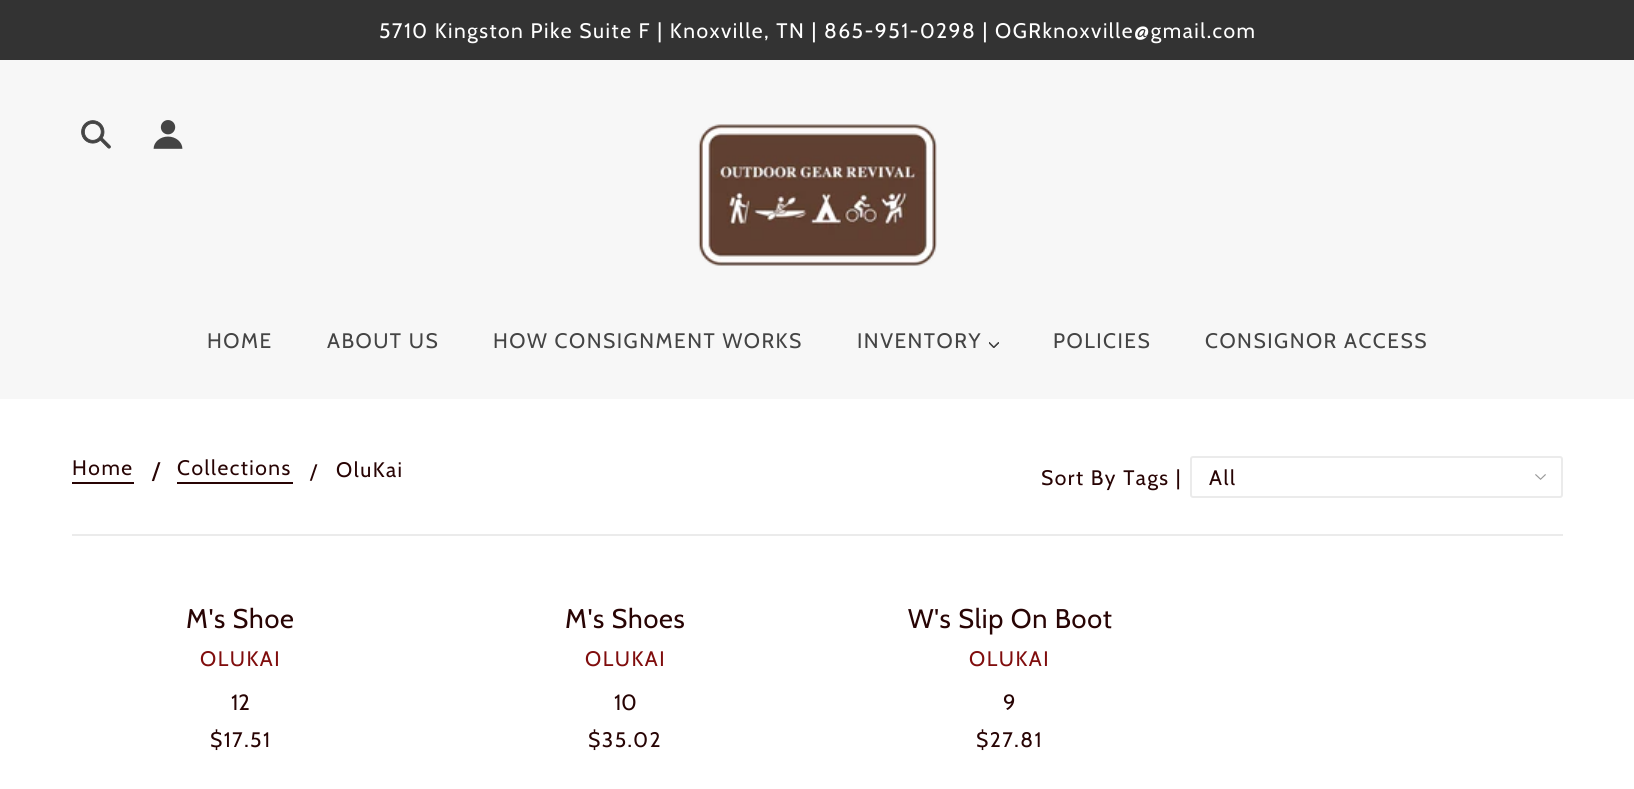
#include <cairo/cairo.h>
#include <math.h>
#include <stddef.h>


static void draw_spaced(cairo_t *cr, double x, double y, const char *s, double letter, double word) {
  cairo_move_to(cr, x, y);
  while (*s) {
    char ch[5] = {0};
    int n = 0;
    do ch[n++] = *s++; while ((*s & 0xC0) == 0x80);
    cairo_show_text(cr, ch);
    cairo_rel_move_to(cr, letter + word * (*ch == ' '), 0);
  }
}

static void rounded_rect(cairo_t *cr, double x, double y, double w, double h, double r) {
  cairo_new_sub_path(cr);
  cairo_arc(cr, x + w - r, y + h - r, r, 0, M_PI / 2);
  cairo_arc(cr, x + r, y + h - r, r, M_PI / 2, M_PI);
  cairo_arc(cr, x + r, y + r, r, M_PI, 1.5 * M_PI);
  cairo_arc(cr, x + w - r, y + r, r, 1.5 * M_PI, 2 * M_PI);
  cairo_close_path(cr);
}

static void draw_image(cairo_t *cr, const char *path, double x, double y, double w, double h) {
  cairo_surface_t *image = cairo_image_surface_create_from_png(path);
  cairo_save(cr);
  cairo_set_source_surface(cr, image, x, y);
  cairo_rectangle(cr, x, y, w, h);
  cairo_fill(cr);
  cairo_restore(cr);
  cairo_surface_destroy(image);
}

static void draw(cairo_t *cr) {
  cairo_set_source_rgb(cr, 1, 1, 1);
  cairo_paint(cr);
  cairo_set_source_rgb(cr, 51 / 255.0, 51 / 255.0, 51 / 255.0);
  cairo_rectangle(cr, 0, 0, 1634, 60);
  cairo_fill(cr);
  cairo_set_source_rgb(cr, 247 / 255.0, 247 / 255.0, 247 / 255.0);
  cairo_rectangle(cr, 0, 60, 1634, 339);
  cairo_fill(cr);
  draw_image(cr, "images/1.png", 81, 120, 30, 29);
  draw_image(cr, "images/2.png", 153, 120, 30, 29);
  draw_image(cr, "images/3.png", 698, 124, 239, 142);
  draw_image(cr, "images/4.png", 989, 342, 10, 6);
  cairo_set_source_rgb(cr, 40 / 255.0, 4 / 255.0, 4 / 255.0);
  cairo_rectangle(cr, 72, 482, 62, 2);
  cairo_fill(cr);
  cairo_rectangle(cr, 177, 482, 116, 2);
  cairo_fill(cr);
  draw_image(cr, "images/5.png", 1535, 474, 11, 6);
  rounded_rect(cr, 1191, 457, 371, 40, 2);
  cairo_set_source_rgb(cr, 235 / 255.0, 235 / 255.0, 235 / 255.0);
  cairo_stroke(cr);
  cairo_rectangle(cr, 72, 534, 1491, 2);
  cairo_fill(cr);
  cairo_select_font_face(cr, "Cabin", CAIRO_FONT_SLANT_NORMAL, CAIRO_FONT_WEIGHT_NORMAL);
  cairo_set_font_size(cr, 21);
  cairo_set_source_rgb(cr, 1, 1, 1);
  draw_spaced(cr, 379, 38, "5710 Kingston Pike Suite F | Knoxville, TN | 865-951-0298 | OGRknoxville@gmail.com", 1.5, 0);
  cairo_set_source_rgb(cr, 68 / 255.0, 68 / 255.0, 68 / 255.0);
  draw_spaced(cr, 207, 348, "HOME", 1.5, 0);
  draw_spaced(cr, 327, 348, "ABOUT US", 1.5, 0);
  draw_spaced(cr, 493, 348, "HOW CONSIGNMENT WORKS", 1.5, 0);
  draw_spaced(cr, 857, 348, "INVENTORY", 1.5, 0);
  draw_spaced(cr, 1053, 348, "POLICIES", 1.5, 0);
  draw_spaced(cr, 1205, 348, "CONSIGNOR ACCESS", 1.5, 0);
  cairo_set_source_rgb(cr, 40 / 255.0, 4 / 255.0, 4 / 255.0);
  draw_spaced(cr, 72, 475, "Home", 1.5, 0);
  cairo_set_font_size(cr, 24);
  cairo_move_to(cr, 152, 479);
  cairo_show_text(cr, "/");
  cairo_set_font_size(cr, 21);
  draw_spaced(cr, 177, 475, "Collections", 1.5, 0);
  draw_spaced(cr, 310, 479, "/", 1.5, 0);
  draw_spaced(cr, 336, 477, "OluKai", 1.5, 0);
  draw_spaced(cr, 1041, 485, "Sort By Tags |", 1.5, 0);
  draw_spaced(cr, 1209, 485, "All", 1.5, 0);
  cairo_set_font_size(cr, 27);
  draw_spaced(cr, 186, 628, "M's Shoe", 0.7, 0);
  cairo_set_font_size(cr, 21);
  cairo_set_source_rgb(cr, 128 / 255.0, 13 / 255.0, 13 / 255.0);
  draw_spaced(cr, 200, 666, "OLUKAI", 1.5, 0);
  cairo_set_font_size(cr, 22);
  cairo_set_source_rgb(cr, 40 / 255.0, 4 / 255.0, 4 / 255.0);
  cairo_move_to(cr, 231, 710);
  cairo_show_text(cr, "12");
  cairo_set_font_size(cr, 21);
  draw_spaced(cr, 210, 747, "$17.51", 1.5, 0);
  cairo_set_font_size(cr, 27);
  draw_spaced(cr, 565, 628, "M's Shoes", 0.7, 0);
  cairo_set_font_size(cr, 21);
  cairo_set_source_rgb(cr, 128 / 255.0, 13 / 255.0, 13 / 255.0);
  draw_spaced(cr, 585, 666, "OLUKAI", 1.5, 0);
  cairo_set_font_size(cr, 22);
  cairo_set_source_rgb(cr, 40 / 255.0, 4 / 255.0, 4 / 255.0);
  cairo_move_to(cr, 614, 710);
  cairo_show_text(cr, "10");
  cairo_set_font_size(cr, 21);
  draw_spaced(cr, 588, 747, "$35.02", 1.5, 0);
  cairo_set_font_size(cr, 27);
  draw_spaced(cr, 908, 628, "W's Slip On Boot", 0.7, 0);
  cairo_set_font_size(cr, 21);
  cairo_set_source_rgb(cr, 128 / 255.0, 13 / 255.0, 13 / 255.0);
  draw_spaced(cr, 969, 666, "OLUKAI", 1.5, 0);
  cairo_set_font_size(cr, 22);
  cairo_set_source_rgb(cr, 40 / 255.0, 4 / 255.0, 4 / 255.0);
  cairo_move_to(cr, 1003, 710);
  cairo_show_text(cr, "9");
  cairo_set_font_size(cr, 21);
  draw_spaced(cr, 976, 747, "$27.81", 1.5, 0);
}

int main(void) {
  cairo_surface_t *surface = cairo_image_surface_create(CAIRO_FORMAT_RGB24, 1634, 789);
  cairo_t *cr = cairo_create(surface);
  cairo_font_options_t *options = cairo_font_options_create();
  cairo_font_options_set_hint_metrics(options, CAIRO_HINT_METRICS_OFF);
  cairo_font_options_set_hint_style(options, CAIRO_HINT_STYLE_NONE);
  cairo_set_font_options(cr, options);
  cairo_set_miter_limit(cr, 4);
  draw(cr);
  cairo_surface_write_to_png(surface, "out.png");
  cairo_font_options_destroy(options);
  cairo_destroy(cr);
  cairo_surface_destroy(surface);
  return 0;
}
